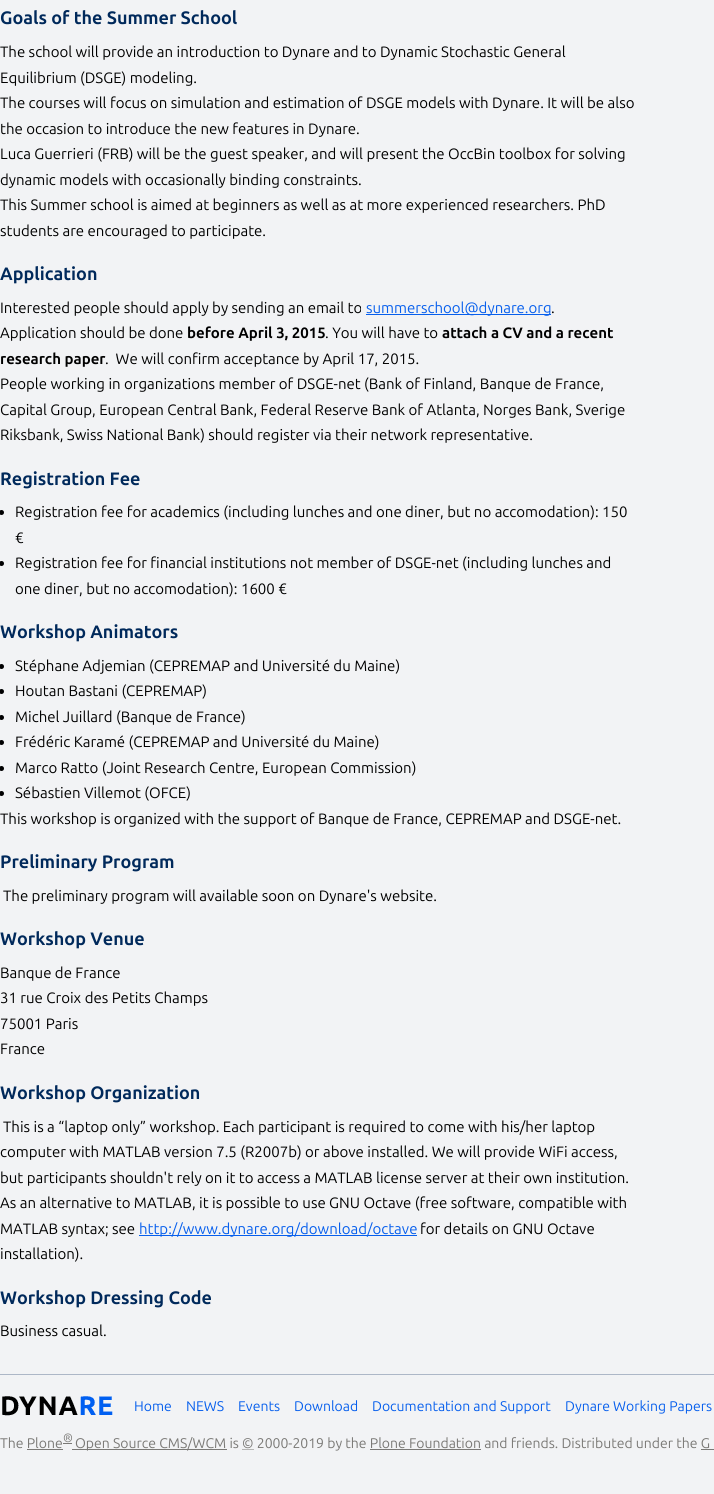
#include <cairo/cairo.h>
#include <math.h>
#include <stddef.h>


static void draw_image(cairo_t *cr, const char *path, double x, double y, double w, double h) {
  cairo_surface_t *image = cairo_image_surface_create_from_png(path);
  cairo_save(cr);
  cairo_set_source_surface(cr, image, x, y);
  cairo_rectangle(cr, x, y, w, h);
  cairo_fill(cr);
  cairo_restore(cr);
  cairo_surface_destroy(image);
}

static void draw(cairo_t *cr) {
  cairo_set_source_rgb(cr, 242 / 255.0, 243 / 255.0, 245 / 255.0);
  cairo_paint(cr);
  cairo_set_source_rgb(cr, 7 / 255.0, 95 / 255.0, 237 / 255.0);
  cairo_rectangle(cr, 366, 314, 185, 1);
  cairo_fill(cr);
  cairo_set_source_rgb(cr, 0, 0, 0);
  cairo_arc(cr, 1.5, 512.5, 2.5, 0, 2 * M_PI);
  cairo_fill(cr);
  cairo_arc(cr, 1.5, 563.5, 2.5, 0, 2 * M_PI);
  cairo_fill(cr);
  cairo_arc(cr, 1.5, 666.5, 2.5, 0, 2 * M_PI);
  cairo_fill(cr);
  cairo_arc(cr, 1.5, 691.5, 2.5, 0, 2 * M_PI);
  cairo_fill(cr);
  cairo_arc(cr, 1.5, 717.5, 2.5, 0, 2 * M_PI);
  cairo_fill(cr);
  cairo_arc(cr, 1.5, 742.5, 2.5, 0, 2 * M_PI);
  cairo_fill(cr);
  cairo_arc(cr, 1.5, 768.5, 2.5, 0, 2 * M_PI);
  cairo_fill(cr);
  cairo_arc(cr, 1.5, 793.5, 2.5, 0, 2 * M_PI);
  cairo_fill(cr);
  cairo_set_source_rgb(cr, 7 / 255.0, 95 / 255.0, 237 / 255.0);
  cairo_rectangle(cr, 139, 1235, 278, 1);
  cairo_fill(cr);
  cairo_set_source_rgb(cr, 173 / 255.0, 183 / 255.0, 199 / 255.0);
  cairo_rectangle(cr, 0, 1374, 714, 1);
  cairo_fill(cr);
  draw_image(cr, "images/1.png", 2, 1396, 111, 20);
  cairo_set_source_rgb(cr, 122 / 255.0, 121 / 255.0, 118 / 255.0);
  cairo_rectangle(cr, 27, 1449, 36, 1);
  cairo_fill(cr);
  cairo_rectangle(cr, 63, 1443, 9, 1);
  cairo_fill(cr);
  cairo_rectangle(cr, 72, 1449, 155, 1);
  cairo_fill(cr);
  cairo_new_path(cr);
  cairo_move_to(cr, 242.5, 1449.5);
  cairo_line_to(cr, 254, 1449.5);
  cairo_set_line_width(cr, 1);
  cairo_set_dash(cr, (double[]){1, 1}, 2, 0);
  cairo_stroke(cr);
  cairo_rectangle(cr, 370, 1449, 111, 1);
  cairo_fill(cr);
  cairo_rectangle(cr, 701, 1449, 13, 1);
  cairo_fill(cr);
  cairo_select_font_face(cr, "Ubuntu", CAIRO_FONT_SLANT_NORMAL, CAIRO_FONT_WEIGHT_BOLD);
  cairo_set_font_size(cr, 18);
  cairo_set_source_rgb(cr, 0, 41 / 255.0, 91 / 255.0);
  cairo_move_to(cr, 0, 24);
  cairo_show_text(cr, "Goals of the Summer School");
  cairo_select_font_face(cr, "Ubuntu", CAIRO_FONT_SLANT_NORMAL, CAIRO_FONT_WEIGHT_NORMAL);
  cairo_set_font_size(cr, 15);
  cairo_set_source_rgb(cr, 0, 0, 0);
  cairo_move_to(cr, 0, 57);
  cairo_show_text(cr, "The school will provide an introduction to Dynare and to Dynamic Stochastic General");
  cairo_move_to(cr, 0, 83);
  cairo_show_text(cr, "Equilibrium (DSGE) modeling.");
  cairo_move_to(cr, 0, 108);
  cairo_show_text(cr, "The courses will focus on simulation and estimation of DSGE models with Dynare. It will be also");
  cairo_move_to(cr, 0, 134);
  cairo_show_text(cr, "the occasion to introduce the new features in Dynare.");
  cairo_move_to(cr, 0, 159);
  cairo_show_text(cr, "Luca Guerrieri (FRB) will be the guest speaker, and will present the OccBin toolbox for solving");
  cairo_move_to(cr, 0, 185);
  cairo_show_text(cr, "dynamic models with occasionally binding constraints.");
  cairo_move_to(cr, 0, 210);
  cairo_show_text(cr, "This Summer school is aimed at beginners as well as at more experienced researchers. PhD");
  cairo_move_to(cr, 0, 236);
  cairo_show_text(cr, "students are encouraged to participate.");
  cairo_select_font_face(cr, "Ubuntu", CAIRO_FONT_SLANT_NORMAL, CAIRO_FONT_WEIGHT_BOLD);
  cairo_set_font_size(cr, 18);
  cairo_set_source_rgb(cr, 0, 41 / 255.0, 91 / 255.0);
  cairo_move_to(cr, 0, 280);
  cairo_show_text(cr, "Application");
  cairo_select_font_face(cr, "Ubuntu", CAIRO_FONT_SLANT_NORMAL, CAIRO_FONT_WEIGHT_NORMAL);
  cairo_set_font_size(cr, 15);
  cairo_set_source_rgb(cr, 0, 0, 0);
  cairo_move_to(cr, 0, 313);
  cairo_show_text(cr, "Interested people should apply by sending an email to");
  cairo_set_source_rgb(cr, 7 / 255.0, 95 / 255.0, 237 / 255.0);
  cairo_move_to(cr, 366, 313);
  cairo_show_text(cr, "summerschool@dynare.org");
  cairo_set_source_rgb(cr, 0, 0, 0);
  cairo_move_to(cr, 551, 313);
  cairo_show_text(cr, ".");
  cairo_move_to(cr, 0, 338);
  cairo_show_text(cr, "Application should be done");
  cairo_select_font_face(cr, "Ubuntu", CAIRO_FONT_SLANT_NORMAL, CAIRO_FONT_WEIGHT_BOLD);
  cairo_move_to(cr, 187, 338);
  cairo_show_text(cr, "before April 3, 2015");
  cairo_select_font_face(cr, "Ubuntu", CAIRO_FONT_SLANT_NORMAL, CAIRO_FONT_WEIGHT_NORMAL);
  cairo_move_to(cr, 325, 338);
  cairo_show_text(cr, ". You will have to");
  cairo_select_font_face(cr, "Ubuntu", CAIRO_FONT_SLANT_NORMAL, CAIRO_FONT_WEIGHT_BOLD);
  cairo_move_to(cr, 442, 338);
  cairo_show_text(cr, "attach a CV and a recent");
  cairo_move_to(cr, 0, 364);
  cairo_show_text(cr, "research paper");
  cairo_select_font_face(cr, "Ubuntu", CAIRO_FONT_SLANT_NORMAL, CAIRO_FONT_WEIGHT_NORMAL);
  cairo_move_to(cr, 105, 364);
  cairo_show_text(cr, ".  We will confirm acceptance by April 17, 2015.");
  cairo_move_to(cr, 0, 389);
  cairo_show_text(cr, "People working in organizations member of DSGE-net (Bank of Finland, Banque de France,");
  cairo_move_to(cr, 0, 415);
  cairo_show_text(cr, "Capital Group, European Central Bank, Federal Reserve Bank of Atlanta, Norges Bank, Sverige");
  cairo_move_to(cr, 0, 440);
  cairo_show_text(cr, "Riksbank, Swiss National Bank) should register via their network representative.");
  cairo_select_font_face(cr, "Ubuntu", CAIRO_FONT_SLANT_NORMAL, CAIRO_FONT_WEIGHT_BOLD);
  cairo_set_font_size(cr, 18);
  cairo_set_source_rgb(cr, 0, 41 / 255.0, 91 / 255.0);
  cairo_move_to(cr, 0, 485);
  cairo_show_text(cr, "Registration Fee");
  cairo_select_font_face(cr, "Ubuntu", CAIRO_FONT_SLANT_NORMAL, CAIRO_FONT_WEIGHT_NORMAL);
  cairo_set_font_size(cr, 15);
  cairo_set_source_rgb(cr, 0, 0, 0);
  cairo_move_to(cr, 15, 517);
  cairo_show_text(cr, "Registration fee for academics (including lunches and one diner, but no accomodation): 150");
  cairo_move_to(cr, 15, 543);
  cairo_show_text(cr, "€");
  cairo_move_to(cr, 15, 568);
  cairo_show_text(cr, "Registration fee for financial institutions not member of DSGE-net (including lunches and");
  cairo_move_to(cr, 15, 594);
  cairo_show_text(cr, "one diner, but no accomodation): 1600 €");
  cairo_select_font_face(cr, "Ubuntu", CAIRO_FONT_SLANT_NORMAL, CAIRO_FONT_WEIGHT_BOLD);
  cairo_set_font_size(cr, 18);
  cairo_set_source_rgb(cr, 0, 41 / 255.0, 91 / 255.0);
  cairo_move_to(cr, 0, 638);
  cairo_show_text(cr, "Workshop Animators");
  cairo_select_font_face(cr, "Ubuntu", CAIRO_FONT_SLANT_NORMAL, CAIRO_FONT_WEIGHT_NORMAL);
  cairo_set_font_size(cr, 15);
  cairo_set_source_rgb(cr, 0, 0, 0);
  cairo_move_to(cr, 15, 671);
  cairo_show_text(cr, "Stéphane Adjemian (CEPREMAP and Université du Maine)");
  cairo_move_to(cr, 15, 696);
  cairo_show_text(cr, "Houtan Bastani (CEPREMAP)");
  cairo_move_to(cr, 15, 722);
  cairo_show_text(cr, "Michel Juillard (Banque de France)");
  cairo_move_to(cr, 15, 747);
  cairo_show_text(cr, "Frédéric Karamé (CEPREMAP and Université du Maine)");
  cairo_move_to(cr, 15, 773);
  cairo_show_text(cr, "Marco Ratto (Joint Research Centre, European Commission)");
  cairo_move_to(cr, 15, 798);
  cairo_show_text(cr, "Sébastien Villemot (OFCE)");
  cairo_move_to(cr, 0, 824);
  cairo_show_text(cr, "This workshop is organized with the support of Banque de France, CEPREMAP and DSGE-net.");
  cairo_select_font_face(cr, "Ubuntu", CAIRO_FONT_SLANT_NORMAL, CAIRO_FONT_WEIGHT_BOLD);
  cairo_set_font_size(cr, 18);
  cairo_set_source_rgb(cr, 0, 41 / 255.0, 91 / 255.0);
  cairo_move_to(cr, 0, 868);
  cairo_show_text(cr, "Preliminary Program");
  cairo_select_font_face(cr, "Ubuntu", CAIRO_FONT_SLANT_NORMAL, CAIRO_FONT_WEIGHT_NORMAL);
  cairo_set_font_size(cr, 15);
  cairo_set_source_rgb(cr, 0, 0, 0);
  cairo_move_to(cr, 3, 901);
  cairo_show_text(cr, "The preliminary program will available soon on Dynare's website.");
  cairo_select_font_face(cr, "Ubuntu", CAIRO_FONT_SLANT_NORMAL, CAIRO_FONT_WEIGHT_BOLD);
  cairo_set_font_size(cr, 18);
  cairo_set_source_rgb(cr, 0, 41 / 255.0, 91 / 255.0);
  cairo_move_to(cr, 0, 945);
  cairo_show_text(cr, "Workshop Venue");
  cairo_select_font_face(cr, "Ubuntu", CAIRO_FONT_SLANT_NORMAL, CAIRO_FONT_WEIGHT_NORMAL);
  cairo_set_font_size(cr, 15);
  cairo_set_source_rgb(cr, 0, 0, 0);
  cairo_move_to(cr, 0, 978);
  cairo_show_text(cr, "Banque de France");
  cairo_move_to(cr, 0, 1003);
  cairo_show_text(cr, "31 rue Croix des Petits Champs");
  cairo_move_to(cr, 0, 1029);
  cairo_show_text(cr, "75001 Paris");
  cairo_move_to(cr, 0, 1054);
  cairo_show_text(cr, "France");
  cairo_select_font_face(cr, "Ubuntu", CAIRO_FONT_SLANT_NORMAL, CAIRO_FONT_WEIGHT_BOLD);
  cairo_set_font_size(cr, 18);
  cairo_set_source_rgb(cr, 0, 41 / 255.0, 91 / 255.0);
  cairo_move_to(cr, 0, 1099);
  cairo_show_text(cr, "Workshop Organization");
  cairo_select_font_face(cr, "Ubuntu", CAIRO_FONT_SLANT_NORMAL, CAIRO_FONT_WEIGHT_NORMAL);
  cairo_set_font_size(cr, 15);
  cairo_set_source_rgb(cr, 0, 0, 0);
  cairo_move_to(cr, 3, 1132);
  cairo_show_text(cr, "This is a “laptop only” workshop. Each participant is required to come with his/her laptop");
  cairo_move_to(cr, 0, 1157);
  cairo_show_text(cr, "computer with MATLAB version 7.5 (R2007b) or above installed. We will provide WiFi access,");
  cairo_move_to(cr, 0, 1183);
  cairo_show_text(cr, "but participants shouldn't rely on it to access a MATLAB license server at their own institution.");
  cairo_move_to(cr, 0, 1208);
  cairo_show_text(cr, "As an alternative to MATLAB, it is possible to use GNU Octave (free software, compatible with");
  cairo_move_to(cr, 0, 1234);
  cairo_show_text(cr, "MATLAB syntax; see");
  cairo_set_source_rgb(cr, 7 / 255.0, 95 / 255.0, 237 / 255.0);
  cairo_move_to(cr, 139, 1234);
  cairo_show_text(cr, "http://www.dynare.org/download/octave");
  cairo_set_source_rgb(cr, 0, 0, 0);
  cairo_move_to(cr, 420, 1234);
  cairo_show_text(cr, "for details on GNU Octave");
  cairo_move_to(cr, 0, 1259);
  cairo_show_text(cr, "installation).");
  cairo_select_font_face(cr, "Ubuntu", CAIRO_FONT_SLANT_NORMAL, CAIRO_FONT_WEIGHT_BOLD);
  cairo_set_font_size(cr, 18);
  cairo_set_source_rgb(cr, 0, 41 / 255.0, 91 / 255.0);
  cairo_move_to(cr, 0, 1304);
  cairo_show_text(cr, "Workshop Dressing Code");
  cairo_select_font_face(cr, "Ubuntu", CAIRO_FONT_SLANT_NORMAL, CAIRO_FONT_WEIGHT_NORMAL);
  cairo_set_font_size(cr, 15);
  cairo_set_source_rgb(cr, 0, 0, 0);
  cairo_move_to(cr, 0, 1336);
  cairo_show_text(cr, "Business casual.");
  cairo_set_font_size(cr, 14);
  cairo_set_source_rgb(cr, 7 / 255.0, 95 / 255.0, 237 / 255.0);
  cairo_move_to(cr, 134, 1411);
  cairo_show_text(cr, "Home");
  cairo_move_to(cr, 186, 1411);
  cairo_show_text(cr, "NEWS");
  cairo_move_to(cr, 238, 1411);
  cairo_show_text(cr, "Events");
  cairo_move_to(cr, 294, 1411);
  cairo_show_text(cr, "Download");
  cairo_move_to(cr, 372, 1411);
  cairo_show_text(cr, "Documentation and Support");
  cairo_move_to(cr, 565, 1411);
  cairo_show_text(cr, "Dynare Working Papers");
  cairo_set_source_rgb(cr, 122 / 255.0, 121 / 255.0, 118 / 255.0);
  cairo_move_to(cr, 0, 1448);
  cairo_show_text(cr, "The Plone");
  cairo_set_font_size(cr, 12);
  cairo_move_to(cr, 63, 1442);
  cairo_show_text(cr, "®");
  cairo_set_font_size(cr, 14);
  cairo_move_to(cr, 75, 1448);
  cairo_show_text(cr, "Open Source CMS/WCM is © 2000-2019 by the Plone Foundation and friends. Distributed under the G");
}

int main(void) {
  cairo_surface_t *surface = cairo_image_surface_create(CAIRO_FORMAT_RGB24, 714, 1494);
  cairo_t *cr = cairo_create(surface);
  cairo_font_options_t *options = cairo_font_options_create();
  cairo_font_options_set_hint_metrics(options, CAIRO_HINT_METRICS_OFF);
  cairo_font_options_set_hint_style(options, CAIRO_HINT_STYLE_NONE);
  cairo_set_font_options(cr, options);
  cairo_set_miter_limit(cr, 4);
  draw(cr);
  cairo_surface_write_to_png(surface, "out.png");
  cairo_font_options_destroy(options);
  cairo_destroy(cr);
  cairo_surface_destroy(surface);
  return 0;
}
